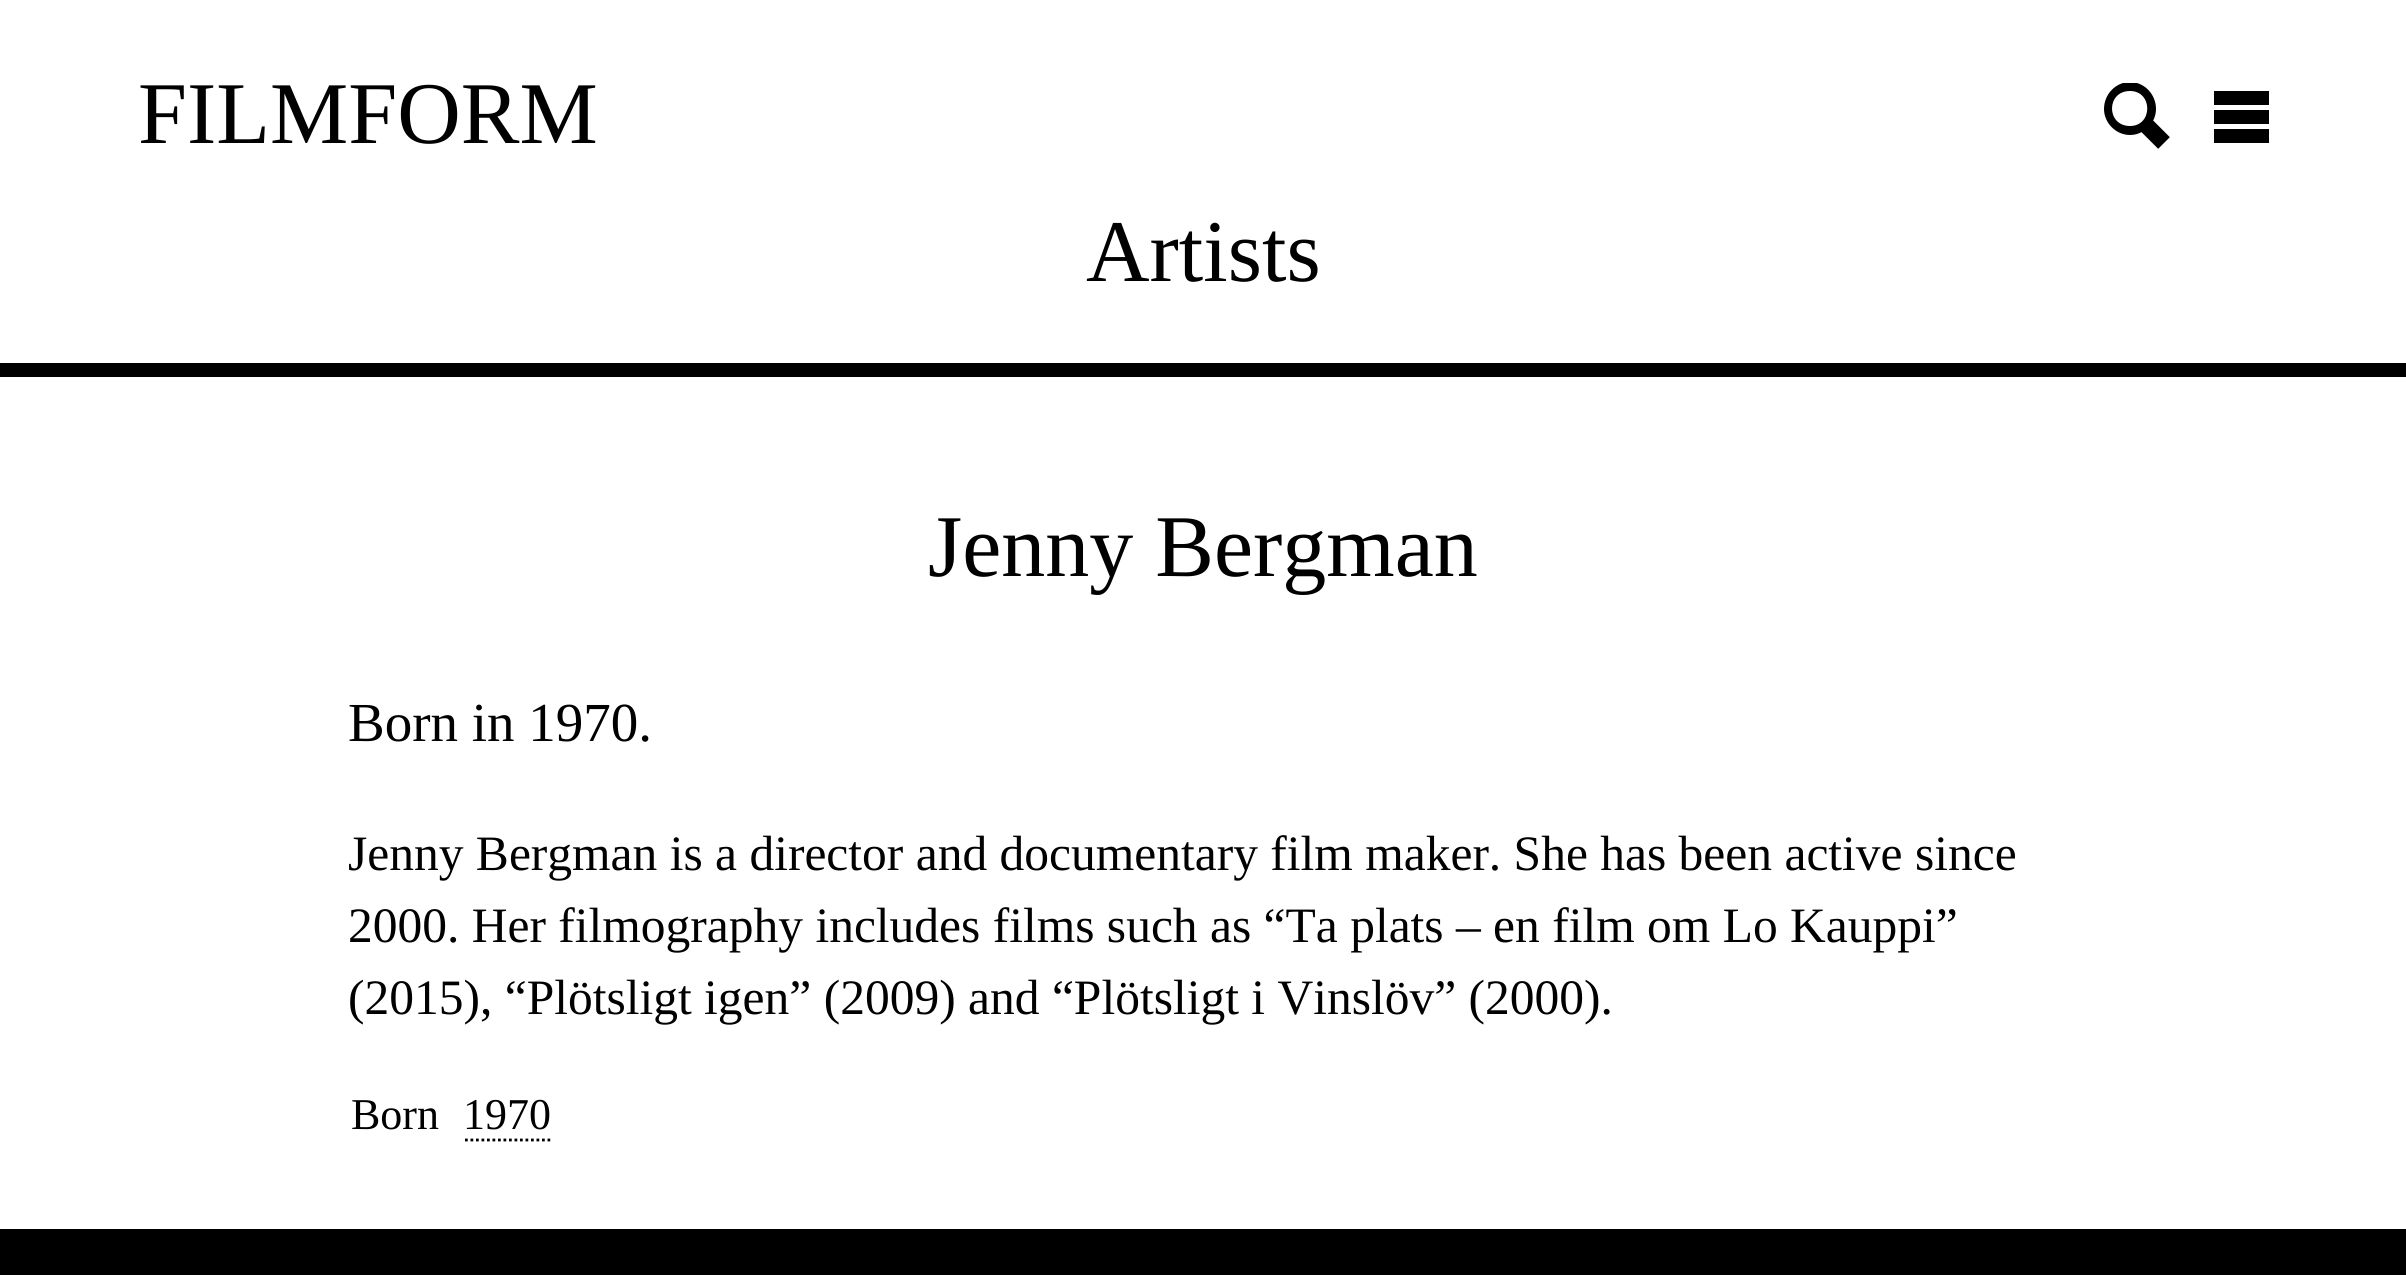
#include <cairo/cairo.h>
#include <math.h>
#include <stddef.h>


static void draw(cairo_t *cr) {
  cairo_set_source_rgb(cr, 1, 1, 1);
  cairo_paint(cr);
  cairo_save(cr);
  cairo_rectangle(cr, 2104, 83, 66, 66);
  cairo_clip(cr);
  cairo_set_source_rgb(cr, 0, 0, 0);
  cairo_new_path(cr);
  cairo_move_to(cr, 2130, 91);
  cairo_curve_to(cr, 2153, 91, 2153, 126, 2130, 126);
  cairo_curve_to(cr, 2106, 126, 2106, 91, 2130, 91);
  cairo_move_to(cr, 2130, 82);
  cairo_curve_to(cr, 2116, 82, 2104, 94, 2104, 109);
  cairo_curve_to(cr, 2104, 123, 2116, 135, 2130, 135);
  cairo_curve_to(cr, 2144, 135, 2156, 123, 2156, 109);
  cairo_curve_to(cr, 2156, 94, 2144, 82, 2130, 82);
  cairo_close_path(cr);
  cairo_fill(cr);
  cairo_restore(cr);
  cairo_new_path(cr);
  cairo_move_to(cr, 2143.5, 122.5);
  cairo_line_to(cr, 2164, 143);
  cairo_set_source_rgb(cr, 0, 0, 0);
  cairo_set_line_width(cr, 16.5);
  cairo_stroke(cr);
  cairo_rectangle(cr, 2214, 91, 55, 14);
  cairo_fill(cr);
  cairo_rectangle(cr, 2214, 110, 55, 14);
  cairo_fill(cr);
  cairo_rectangle(cr, 2214, 129, 55, 14);
  cairo_fill(cr);
  cairo_rectangle(cr, 0, 363, 2406, 14);
  cairo_fill(cr);
  cairo_new_path(cr);
  cairo_move_to(cr, 465, 1140);
  cairo_line_to(cr, 553, 1140);
  cairo_set_line_width(cr, 2.8);
  cairo_set_dash(cr, (double[]){2.75, 2.75}, 2, 0);
  cairo_stroke(cr);
  cairo_rectangle(cr, 0, 1229, 2406, 46);
  cairo_fill(cr);
  cairo_select_font_face(cr, "Liberation Serif", CAIRO_FONT_SLANT_NORMAL, CAIRO_FONT_WEIGHT_NORMAL);
  cairo_set_font_size(cr, 88);
  cairo_move_to(cr, 138, 143);
  cairo_show_text(cr, "FILMFORM");
  cairo_move_to(cr, 1086, 281);
  cairo_show_text(cr, "Artists");
  cairo_move_to(cr, 928, 576);
  cairo_show_text(cr, "Jenny Bergman");
  cairo_set_font_size(cr, 55);
  cairo_move_to(cr, 348, 741);
  cairo_show_text(cr, "Born in 1970.");
  cairo_set_font_size(cr, 49.5);
  cairo_move_to(cr, 348, 870);
  cairo_show_text(cr, "Jenny Bergman is a director and documentary film maker. She has been active since");
  cairo_move_to(cr, 348, 942);
  cairo_show_text(cr, "2000. Her filmography includes films such as “Ta plats – en film om Lo Kauppi”");
  cairo_move_to(cr, 348, 1014);
  cairo_show_text(cr, "(2015), “Plötsligt igen” (2009) and “Plötsligt i Vinslöv” (2000).");
  cairo_set_font_size(cr, 44);
  cairo_move_to(cr, 351, 1129);
  cairo_show_text(cr, "Born");
  cairo_move_to(cr, 463, 1129);
  cairo_show_text(cr, "1970");
}

int main(void) {
  cairo_surface_t *surface = cairo_image_surface_create(CAIRO_FORMAT_RGB24, 2406, 1275);
  cairo_t *cr = cairo_create(surface);
  cairo_font_options_t *options = cairo_font_options_create();
  cairo_font_options_set_hint_metrics(options, CAIRO_HINT_METRICS_OFF);
  cairo_font_options_set_hint_style(options, CAIRO_HINT_STYLE_NONE);
  cairo_set_font_options(cr, options);
  cairo_set_miter_limit(cr, 4);
  draw(cr);
  cairo_surface_write_to_png(surface, "out.png");
  cairo_font_options_destroy(options);
  cairo_destroy(cr);
  cairo_surface_destroy(surface);
  return 0;
}
